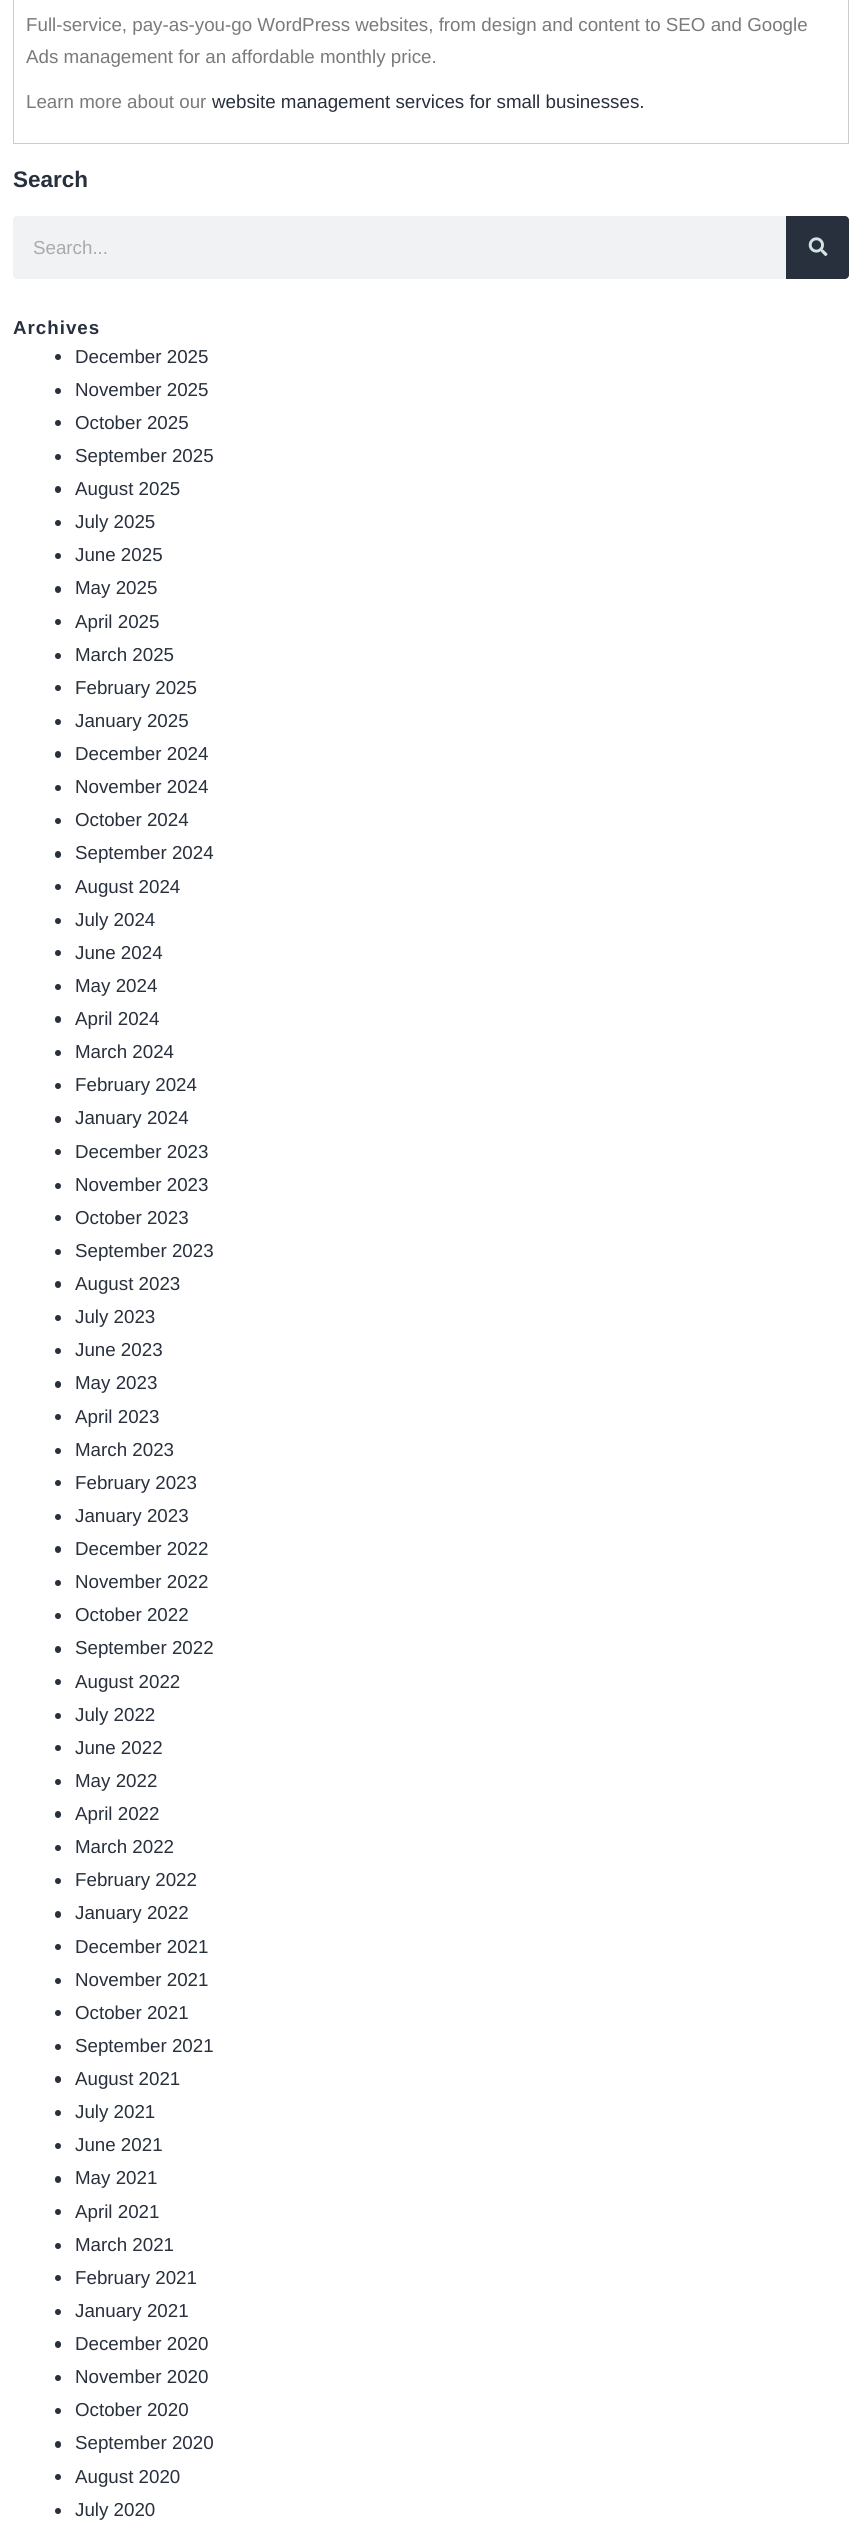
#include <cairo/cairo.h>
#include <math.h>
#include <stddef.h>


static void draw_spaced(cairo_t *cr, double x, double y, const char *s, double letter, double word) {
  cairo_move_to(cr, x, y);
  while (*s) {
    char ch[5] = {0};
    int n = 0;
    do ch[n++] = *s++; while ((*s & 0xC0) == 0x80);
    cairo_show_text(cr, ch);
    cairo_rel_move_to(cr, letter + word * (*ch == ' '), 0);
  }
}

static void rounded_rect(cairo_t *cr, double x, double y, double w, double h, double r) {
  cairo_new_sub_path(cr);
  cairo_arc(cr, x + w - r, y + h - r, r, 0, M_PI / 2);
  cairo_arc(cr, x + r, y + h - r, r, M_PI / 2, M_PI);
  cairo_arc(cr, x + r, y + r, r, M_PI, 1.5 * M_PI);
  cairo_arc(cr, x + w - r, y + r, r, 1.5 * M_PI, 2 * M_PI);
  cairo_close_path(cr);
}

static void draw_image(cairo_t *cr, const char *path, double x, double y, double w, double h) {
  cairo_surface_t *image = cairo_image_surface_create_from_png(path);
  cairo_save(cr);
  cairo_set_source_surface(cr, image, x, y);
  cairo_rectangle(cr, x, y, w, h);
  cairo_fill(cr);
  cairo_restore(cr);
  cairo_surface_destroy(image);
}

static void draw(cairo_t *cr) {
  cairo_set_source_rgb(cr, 1, 1, 1);
  cairo_paint(cr);
  cairo_rectangle(cr, 13.5, -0.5, 835, 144);
  cairo_set_source_rgb(cr, 204 / 255.0, 204 / 255.0, 204 / 255.0);
  cairo_set_line_width(cr, 1);
  cairo_stroke(cr);
  cairo_set_source_rgb(cr, 241 / 255.0, 242 / 255.0, 243 / 255.0);
  rounded_rect(cr, 13, 216, 836, 63, 4);
  cairo_fill(cr);
  cairo_set_source_rgb(cr, 40 / 255.0, 48 / 255.0, 61 / 255.0);
  cairo_new_path(cr);
  cairo_move_to(cr, 786, 216);
  cairo_line_to(cr, 845, 216);
  cairo_curve_to(cr, 847, 216, 849, 218, 849, 220);
  cairo_line_to(cr, 849, 275);
  cairo_curve_to(cr, 849, 277, 847, 279, 845, 279);
  cairo_line_to(cr, 786, 279);
  cairo_close_path(cr);
  cairo_fill(cr);
  draw_image(cr, "images/1.png", 808, 237, 20, 19);
  cairo_arc(cr, 58, 357, 3, 0, 2 * M_PI);
  cairo_fill(cr);
  cairo_arc(cr, 58, 391, 3, 0, 2 * M_PI);
  cairo_fill(cr);
  cairo_arc(cr, 58, 423, 3, 0, 2 * M_PI);
  cairo_fill(cr);
  cairo_arc(cr, 58, 457, 3, 0, 2 * M_PI);
  cairo_fill(cr);
  rounded_rect(cr, 55, 486, 6, 7, 3);
  cairo_fill(cr);
  cairo_arc(cr, 58, 523, 3, 0, 2 * M_PI);
  cairo_fill(cr);
  cairo_arc(cr, 58, 556, 3, 0, 2 * M_PI);
  cairo_fill(cr);
  rounded_rect(cr, 55, 586, 6, 7, 3);
  cairo_fill(cr);
  cairo_arc(cr, 58, 622, 3, 0, 2 * M_PI);
  cairo_fill(cr);
  cairo_arc(cr, 58, 656, 3, 0, 2 * M_PI);
  cairo_fill(cr);
  cairo_arc(cr, 58, 688, 3, 0, 2 * M_PI);
  cairo_fill(cr);
  cairo_arc(cr, 58, 722, 3, 0, 2 * M_PI);
  cairo_fill(cr);
  rounded_rect(cr, 55, 751, 6, 7, 3);
  cairo_fill(cr);
  cairo_arc(cr, 58, 788, 3, 0, 2 * M_PI);
  cairo_fill(cr);
  cairo_arc(cr, 58, 821, 3, 0, 2 * M_PI);
  cairo_fill(cr);
  rounded_rect(cr, 55, 851, 6, 7, 3);
  cairo_fill(cr);
  cairo_arc(cr, 58, 887, 3, 0, 2 * M_PI);
  cairo_fill(cr);
  cairo_arc(cr, 58, 921, 3, 0, 2 * M_PI);
  cairo_fill(cr);
  cairo_arc(cr, 58, 953, 3, 0, 2 * M_PI);
  cairo_fill(cr);
  cairo_arc(cr, 58, 987, 3, 0, 2 * M_PI);
  cairo_fill(cr);
  rounded_rect(cr, 55, 1016, 6, 7, 3);
  cairo_fill(cr);
  cairo_arc(cr, 58, 1053, 3, 0, 2 * M_PI);
  cairo_fill(cr);
  cairo_arc(cr, 58, 1086, 3, 0, 2 * M_PI);
  cairo_fill(cr);
  rounded_rect(cr, 55, 1116, 6, 7, 3);
  cairo_fill(cr);
  cairo_arc(cr, 58, 1152, 3, 0, 2 * M_PI);
  cairo_fill(cr);
  cairo_arc(cr, 58, 1186, 3, 0, 2 * M_PI);
  cairo_fill(cr);
  cairo_arc(cr, 58, 1218, 3, 0, 2 * M_PI);
  cairo_fill(cr);
  cairo_arc(cr, 58, 1252, 3, 0, 2 * M_PI);
  cairo_fill(cr);
  rounded_rect(cr, 55, 1281, 6, 7, 3);
  cairo_fill(cr);
  cairo_arc(cr, 58, 1318, 3, 0, 2 * M_PI);
  cairo_fill(cr);
  cairo_arc(cr, 58, 1351, 3, 0, 2 * M_PI);
  cairo_fill(cr);
  rounded_rect(cr, 55, 1381, 6, 7, 3);
  cairo_fill(cr);
  cairo_arc(cr, 58, 1417, 3, 0, 2 * M_PI);
  cairo_fill(cr);
  cairo_arc(cr, 58, 1451, 3, 0, 2 * M_PI);
  cairo_fill(cr);
  cairo_arc(cr, 58, 1483, 3, 0, 2 * M_PI);
  cairo_fill(cr);
  cairo_arc(cr, 58, 1517, 3, 0, 2 * M_PI);
  cairo_fill(cr);
  rounded_rect(cr, 55, 1546, 6, 7, 3);
  cairo_fill(cr);
  cairo_arc(cr, 58, 1583, 3, 0, 2 * M_PI);
  cairo_fill(cr);
  cairo_arc(cr, 58, 1616, 3, 0, 2 * M_PI);
  cairo_fill(cr);
  rounded_rect(cr, 55, 1646, 6, 7, 3);
  cairo_fill(cr);
  cairo_arc(cr, 58, 1682, 3, 0, 2 * M_PI);
  cairo_fill(cr);
  cairo_arc(cr, 58, 1716, 3, 0, 2 * M_PI);
  cairo_fill(cr);
  cairo_arc(cr, 58, 1748, 3, 0, 2 * M_PI);
  cairo_fill(cr);
  cairo_arc(cr, 58, 1782, 3, 0, 2 * M_PI);
  cairo_fill(cr);
  rounded_rect(cr, 55, 1811, 6, 7, 3);
  cairo_fill(cr);
  cairo_arc(cr, 58, 1848, 3, 0, 2 * M_PI);
  cairo_fill(cr);
  cairo_arc(cr, 58, 1881, 3, 0, 2 * M_PI);
  cairo_fill(cr);
  rounded_rect(cr, 55, 1911, 6, 7, 3);
  cairo_fill(cr);
  cairo_arc(cr, 58, 1947, 3, 0, 2 * M_PI);
  cairo_fill(cr);
  cairo_arc(cr, 58, 1981, 3, 0, 2 * M_PI);
  cairo_fill(cr);
  cairo_arc(cr, 58, 2013, 3, 0, 2 * M_PI);
  cairo_fill(cr);
  cairo_arc(cr, 58, 2047, 3, 0, 2 * M_PI);
  cairo_fill(cr);
  rounded_rect(cr, 55, 2076, 6, 7, 3);
  cairo_fill(cr);
  cairo_arc(cr, 58, 2113, 3, 0, 2 * M_PI);
  cairo_fill(cr);
  cairo_arc(cr, 58, 2146, 3, 0, 2 * M_PI);
  cairo_fill(cr);
  rounded_rect(cr, 55, 2176, 6, 7, 3);
  cairo_fill(cr);
  cairo_arc(cr, 58, 2212, 3, 0, 2 * M_PI);
  cairo_fill(cr);
  cairo_arc(cr, 58, 2246, 3, 0, 2 * M_PI);
  cairo_fill(cr);
  cairo_arc(cr, 58, 2278, 3, 0, 2 * M_PI);
  cairo_fill(cr);
  cairo_arc(cr, 58, 2312, 3, 0, 2 * M_PI);
  cairo_fill(cr);
  rounded_rect(cr, 55, 2341, 6, 7, 3);
  cairo_fill(cr);
  cairo_arc(cr, 58, 2378, 3, 0, 2 * M_PI);
  cairo_fill(cr);
  cairo_arc(cr, 58, 2411, 3, 0, 2 * M_PI);
  cairo_fill(cr);
  rounded_rect(cr, 55, 2441, 6, 7, 3);
  cairo_fill(cr);
  cairo_arc(cr, 58, 2477, 3, 0, 2 * M_PI);
  cairo_fill(cr);
  cairo_arc(cr, 58, 2511, 3, 0, 2 * M_PI);
  cairo_fill(cr);
  cairo_select_font_face(cr, "Liberation Sans", CAIRO_FONT_SLANT_NORMAL, CAIRO_FONT_WEIGHT_NORMAL);
  cairo_set_font_size(cr, 18.75);
  cairo_set_source_rgb(cr, 122 / 255.0, 122 / 255.0, 122 / 255.0);
  cairo_move_to(cr, 26, 31);
  cairo_show_text(cr, "Full-service, pay-as-you-go WordPress websites, from design and content to SEO and Google");
  cairo_move_to(cr, 26, 63);
  cairo_show_text(cr, "Ads management for an affordable monthly price.");
  cairo_move_to(cr, 26, 108);
  cairo_show_text(cr, "Learn more about our");
  cairo_set_source_rgb(cr, 40 / 255.0, 48 / 255.0, 61 / 255.0);
  cairo_move_to(cr, 212, 108);
  cairo_show_text(cr, "website management services for small businesses.");
  cairo_select_font_face(cr, "Liberation Sans", CAIRO_FONT_SLANT_NORMAL, CAIRO_FONT_WEIGHT_BOLD);
  cairo_set_font_size(cr, 22.5);
  cairo_move_to(cr, 13, 187);
  cairo_show_text(cr, "Search");
  cairo_select_font_face(cr, "Liberation Sans", CAIRO_FONT_SLANT_NORMAL, CAIRO_FONT_WEIGHT_NORMAL);
  cairo_set_font_size(cr, 18.75);
  cairo_set_source_rgb(cr, 170 / 255.0, 170 / 255.0, 170 / 255.0);
  cairo_move_to(cr, 33, 254);
  cairo_show_text(cr, "Search...");
  cairo_select_font_face(cr, "Liberation Sans", CAIRO_FONT_SLANT_NORMAL, CAIRO_FONT_WEIGHT_BOLD);
  cairo_set_source_rgb(cr, 40 / 255.0, 48 / 255.0, 61 / 255.0);
  draw_spaced(cr, 13, 334, "Archives", 1, 0);
  cairo_select_font_face(cr, "Liberation Sans", CAIRO_FONT_SLANT_NORMAL, CAIRO_FONT_WEIGHT_NORMAL);
  cairo_move_to(cr, 75, 363);
  cairo_show_text(cr, "December 2025");
  cairo_move_to(cr, 75, 396);
  cairo_show_text(cr, "November 2025");
  cairo_move_to(cr, 75, 429);
  cairo_show_text(cr, "October 2025");
  cairo_move_to(cr, 75, 462);
  cairo_show_text(cr, "September 2025");
  cairo_move_to(cr, 75, 495);
  cairo_show_text(cr, "August 2025");
  cairo_move_to(cr, 75, 528);
  cairo_show_text(cr, "July 2025");
  cairo_move_to(cr, 75, 561);
  cairo_show_text(cr, "June 2025");
  cairo_move_to(cr, 75, 594);
  cairo_show_text(cr, "May 2025");
  cairo_move_to(cr, 75, 628);
  cairo_show_text(cr, "April 2025");
  cairo_move_to(cr, 75, 661);
  cairo_show_text(cr, "March 2025");
  cairo_move_to(cr, 75, 694);
  cairo_show_text(cr, "February 2025");
  cairo_move_to(cr, 75, 727);
  cairo_show_text(cr, "January 2025");
  cairo_move_to(cr, 75, 760);
  cairo_show_text(cr, "December 2024");
  cairo_move_to(cr, 75, 793);
  cairo_show_text(cr, "November 2024");
  cairo_move_to(cr, 75, 826);
  cairo_show_text(cr, "October 2024");
  cairo_move_to(cr, 75, 859);
  cairo_show_text(cr, "September 2024");
  cairo_move_to(cr, 75, 893);
  cairo_show_text(cr, "August 2024");
  cairo_move_to(cr, 75, 926);
  cairo_show_text(cr, "July 2024");
  cairo_move_to(cr, 75, 959);
  cairo_show_text(cr, "June 2024");
  cairo_move_to(cr, 75, 992);
  cairo_show_text(cr, "May 2024");
  cairo_move_to(cr, 75, 1025);
  cairo_show_text(cr, "April 2024");
  cairo_move_to(cr, 75, 1058);
  cairo_show_text(cr, "March 2024");
  cairo_move_to(cr, 75, 1091);
  cairo_show_text(cr, "February 2024");
  cairo_move_to(cr, 75, 1124);
  cairo_show_text(cr, "January 2024");
  cairo_move_to(cr, 75, 1158);
  cairo_show_text(cr, "December 2023");
  cairo_move_to(cr, 75, 1191);
  cairo_show_text(cr, "November 2023");
  cairo_move_to(cr, 75, 1224);
  cairo_show_text(cr, "October 2023");
  cairo_move_to(cr, 75, 1257);
  cairo_show_text(cr, "September 2023");
  cairo_move_to(cr, 75, 1290);
  cairo_show_text(cr, "August 2023");
  cairo_move_to(cr, 75, 1323);
  cairo_show_text(cr, "July 2023");
  cairo_move_to(cr, 75, 1356);
  cairo_show_text(cr, "June 2023");
  cairo_move_to(cr, 75, 1389);
  cairo_show_text(cr, "May 2023");
  cairo_move_to(cr, 75, 1423);
  cairo_show_text(cr, "April 2023");
  cairo_move_to(cr, 75, 1456);
  cairo_show_text(cr, "March 2023");
  cairo_move_to(cr, 75, 1489);
  cairo_show_text(cr, "February 2023");
  cairo_move_to(cr, 75, 1522);
  cairo_show_text(cr, "January 2023");
  cairo_move_to(cr, 75, 1555);
  cairo_show_text(cr, "December 2022");
  cairo_move_to(cr, 75, 1588);
  cairo_show_text(cr, "November 2022");
  cairo_move_to(cr, 75, 1621);
  cairo_show_text(cr, "October 2022");
  cairo_move_to(cr, 75, 1654);
  cairo_show_text(cr, "September 2022");
  cairo_move_to(cr, 75, 1688);
  cairo_show_text(cr, "August 2022");
  cairo_move_to(cr, 75, 1721);
  cairo_show_text(cr, "July 2022");
  cairo_move_to(cr, 75, 1754);
  cairo_show_text(cr, "June 2022");
  cairo_move_to(cr, 75, 1787);
  cairo_show_text(cr, "May 2022");
  cairo_move_to(cr, 75, 1820);
  cairo_show_text(cr, "April 2022");
  cairo_move_to(cr, 75, 1853);
  cairo_show_text(cr, "March 2022");
  cairo_move_to(cr, 75, 1886);
  cairo_show_text(cr, "February 2022");
  cairo_move_to(cr, 75, 1919);
  cairo_show_text(cr, "January 2022");
  cairo_move_to(cr, 75, 1953);
  cairo_show_text(cr, "December 2021");
  cairo_move_to(cr, 75, 1986);
  cairo_show_text(cr, "November 2021");
  cairo_move_to(cr, 75, 2019);
  cairo_show_text(cr, "October 2021");
  cairo_move_to(cr, 75, 2052);
  cairo_show_text(cr, "September 2021");
  cairo_move_to(cr, 75, 2085);
  cairo_show_text(cr, "August 2021");
  cairo_move_to(cr, 75, 2118);
  cairo_show_text(cr, "July 2021");
  cairo_move_to(cr, 75, 2151);
  cairo_show_text(cr, "June 2021");
  cairo_move_to(cr, 75, 2184);
  cairo_show_text(cr, "May 2021");
  cairo_move_to(cr, 75, 2218);
  cairo_show_text(cr, "April 2021");
  cairo_move_to(cr, 75, 2251);
  cairo_show_text(cr, "March 2021");
  cairo_move_to(cr, 75, 2284);
  cairo_show_text(cr, "February 2021");
  cairo_move_to(cr, 75, 2317);
  cairo_show_text(cr, "January 2021");
  cairo_move_to(cr, 75, 2350);
  cairo_show_text(cr, "December 2020");
  cairo_move_to(cr, 75, 2383);
  cairo_show_text(cr, "November 2020");
  cairo_move_to(cr, 75, 2416);
  cairo_show_text(cr, "October 2020");
  cairo_move_to(cr, 75, 2449);
  cairo_show_text(cr, "September 2020");
  cairo_move_to(cr, 75, 2483);
  cairo_show_text(cr, "August 2020");
  cairo_move_to(cr, 75, 2516);
  cairo_show_text(cr, "July 2020");
}

int main(void) {
  cairo_surface_t *surface = cairo_image_surface_create(CAIRO_FORMAT_RGB24, 861, 2526);
  cairo_t *cr = cairo_create(surface);
  cairo_font_options_t *options = cairo_font_options_create();
  cairo_font_options_set_hint_metrics(options, CAIRO_HINT_METRICS_OFF);
  cairo_font_options_set_hint_style(options, CAIRO_HINT_STYLE_NONE);
  cairo_set_font_options(cr, options);
  cairo_set_miter_limit(cr, 4);
  draw(cr);
  cairo_surface_write_to_png(surface, "out.png");
  cairo_font_options_destroy(options);
  cairo_destroy(cr);
  cairo_surface_destroy(surface);
  return 0;
}
